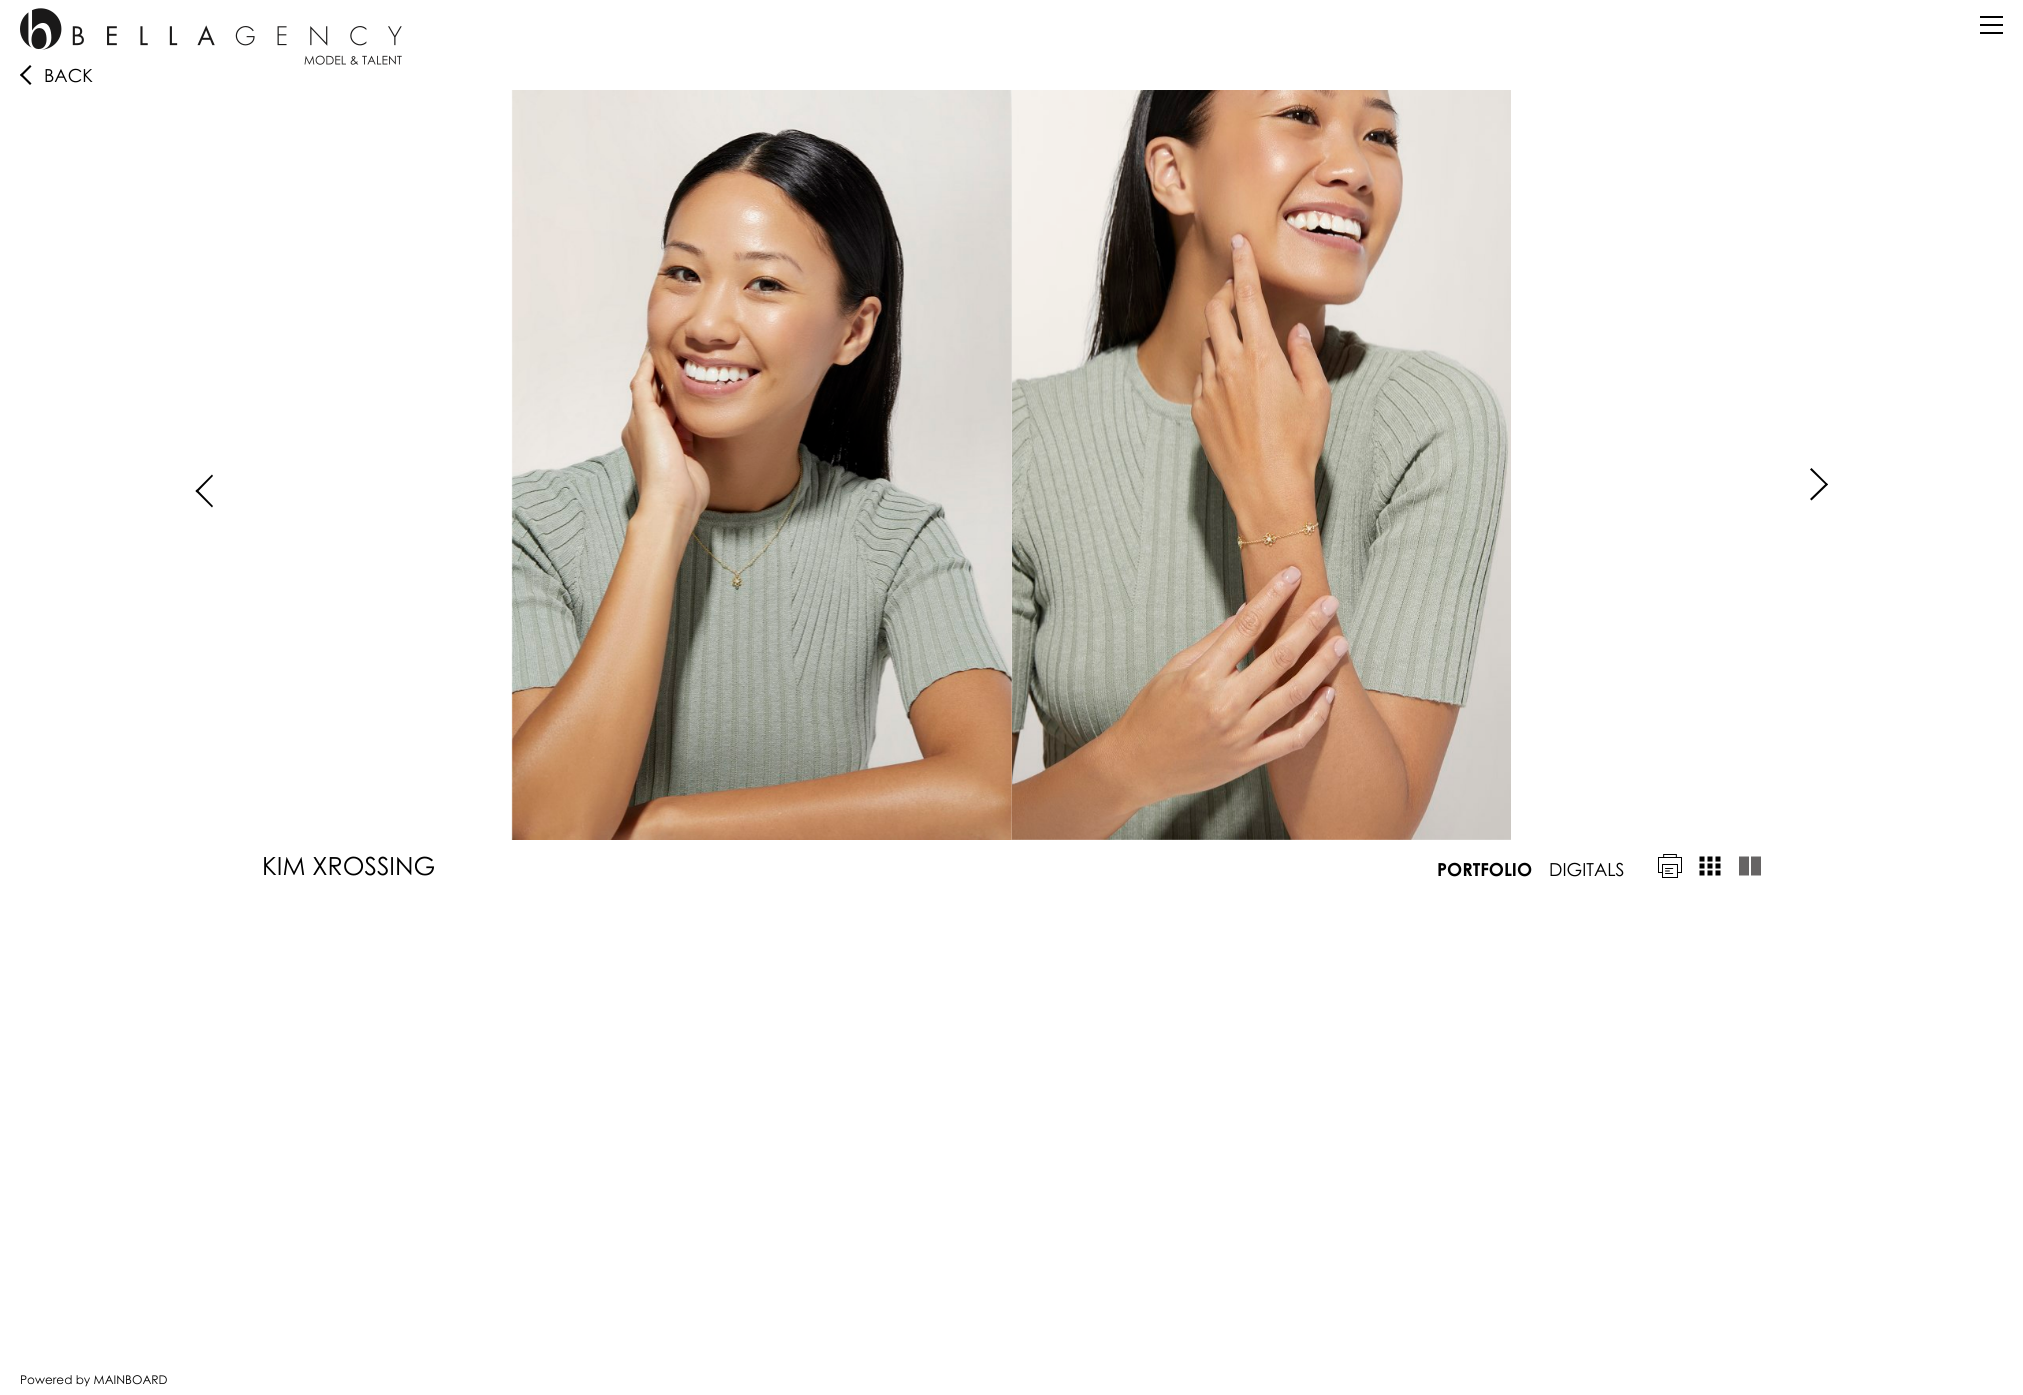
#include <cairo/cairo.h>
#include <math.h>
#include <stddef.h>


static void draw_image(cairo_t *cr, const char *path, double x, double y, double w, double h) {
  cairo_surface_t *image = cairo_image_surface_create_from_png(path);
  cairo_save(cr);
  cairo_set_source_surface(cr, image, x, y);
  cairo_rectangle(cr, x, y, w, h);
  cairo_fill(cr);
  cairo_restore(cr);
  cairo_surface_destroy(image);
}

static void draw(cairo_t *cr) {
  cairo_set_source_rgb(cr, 1, 1, 1);
  cairo_paint(cr);
  draw_image(cr, "images/1.png", 20, 8, 382, 57);
  cairo_set_source_rgb(cr, 0, 0, 0);
  cairo_rectangle(cr, 1980, 16, 23, 2);
  cairo_fill(cr);
  cairo_rectangle(cr, 1980, 24, 23, 2);
  cairo_fill(cr);
  cairo_rectangle(cr, 1980, 32, 23, 2);
  cairo_fill(cr);
  cairo_new_path(cr);
  cairo_move_to(cr, 21.5, 73.5);
  cairo_line_to(cr, 31.5, 83.5);
  cairo_line_to(cr, 30, 85);
  cairo_line_to(cr, 20, 75);
  cairo_close_path(cr);
  cairo_fill(cr);
  cairo_new_path(cr);
  cairo_move_to(cr, 30, 65);
  cairo_line_to(cr, 31.5, 66.5);
  cairo_line_to(cr, 21.5, 76.5);
  cairo_line_to(cr, 20, 75);
  cairo_close_path(cr);
  cairo_fill(cr);
  draw_image(cr, "images/2.png", 1658, 854, 24, 24);
  draw_image(cr, "images/3.png", 1699, 856, 22, 20);
  draw_image(cr, "images/4.png", 1739, 856, 22, 20);
  cairo_new_path(cr);
  cairo_move_to(cr, 197, 489.5);
  cairo_line_to(cr, 213, 506);
  cairo_line_to(cr, 212, 507.5);
  cairo_line_to(cr, 195.5, 491);
  cairo_close_path(cr);
  cairo_fill(cr);
  cairo_new_path(cr);
  cairo_move_to(cr, 212, 474.5);
  cairo_line_to(cr, 213, 476);
  cairo_line_to(cr, 197, 492.5);
  cairo_line_to(cr, 195.5, 491);
  cairo_close_path(cr);
  cairo_fill(cr);
  draw_image(cr, "images/5.png", 511, 90, 501, 750);
  draw_image(cr, "images/6.png", 1012, 90, 499, 750);
  cairo_new_path(cr);
  cairo_move_to(cr, 1811.5, 468);
  cairo_line_to(cr, 1828, 484.5);
  cairo_line_to(cr, 1826.5, 485.5);
  cairo_line_to(cr, 1810, 469.5);
  cairo_close_path(cr);
  cairo_fill(cr);
  cairo_new_path(cr);
  cairo_move_to(cr, 1826.5, 483);
  cairo_line_to(cr, 1828, 484.5);
  cairo_line_to(cr, 1811.5, 500.5);
  cairo_line_to(cr, 1810, 499);
  cairo_close_path(cr);
  cairo_fill(cr);
  cairo_select_font_face(cr, "Century Gothic", CAIRO_FONT_SLANT_NORMAL, CAIRO_FONT_WEIGHT_NORMAL);
  cairo_set_font_size(cr, 18);
  cairo_move_to(cr, 44, 82);
  cairo_show_text(cr, "BACK");
  cairo_set_font_size(cr, 25);
  cairo_move_to(cr, 262, 875);
  cairo_show_text(cr, "KIM XROSSING");
  cairo_select_font_face(cr, "Century Gothic", CAIRO_FONT_SLANT_NORMAL, CAIRO_FONT_WEIGHT_BOLD);
  cairo_set_font_size(cr, 18);
  cairo_move_to(cr, 1437, 876);
  cairo_show_text(cr, "PORTFOLIO");
  cairo_select_font_face(cr, "Century Gothic", CAIRO_FONT_SLANT_NORMAL, CAIRO_FONT_WEIGHT_NORMAL);
  cairo_move_to(cr, 1549, 876);
  cairo_show_text(cr, "DIGITALS");
  cairo_set_font_size(cr, 12);
  cairo_move_to(cr, 20, 1384);
  cairo_show_text(cr, "Powered by MAINBOARD");
}

int main(void) {
  cairo_surface_t *surface = cairo_image_surface_create(CAIRO_FORMAT_RGB24, 2023, 1395);
  cairo_t *cr = cairo_create(surface);
  cairo_font_options_t *options = cairo_font_options_create();
  cairo_font_options_set_hint_metrics(options, CAIRO_HINT_METRICS_OFF);
  cairo_font_options_set_hint_style(options, CAIRO_HINT_STYLE_NONE);
  cairo_set_font_options(cr, options);
  cairo_set_miter_limit(cr, 4);
  draw(cr);
  cairo_surface_write_to_png(surface, "out.png");
  cairo_font_options_destroy(options);
  cairo_destroy(cr);
  cairo_surface_destroy(surface);
  return 0;
}
